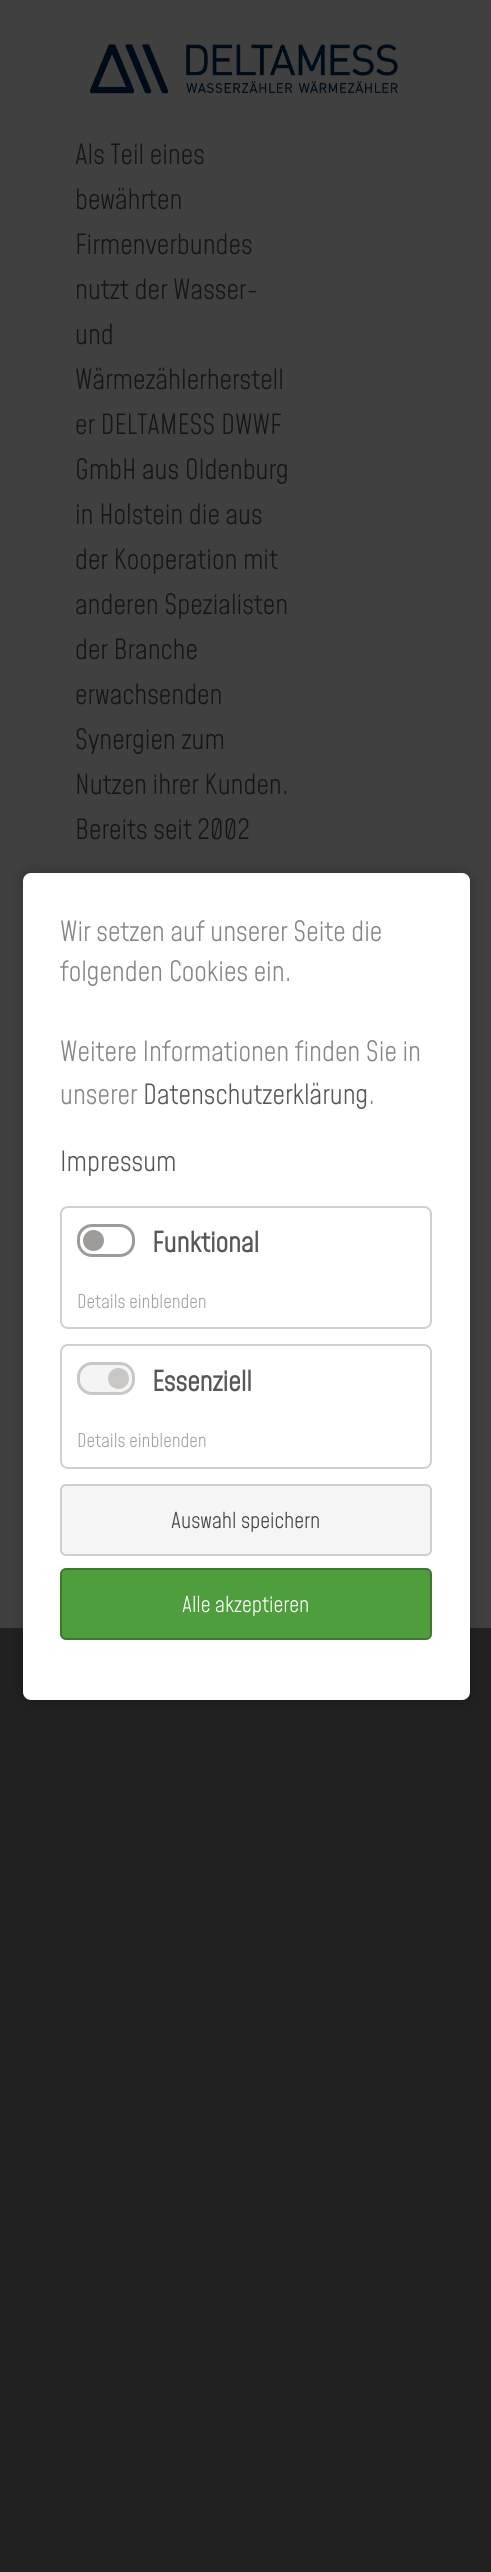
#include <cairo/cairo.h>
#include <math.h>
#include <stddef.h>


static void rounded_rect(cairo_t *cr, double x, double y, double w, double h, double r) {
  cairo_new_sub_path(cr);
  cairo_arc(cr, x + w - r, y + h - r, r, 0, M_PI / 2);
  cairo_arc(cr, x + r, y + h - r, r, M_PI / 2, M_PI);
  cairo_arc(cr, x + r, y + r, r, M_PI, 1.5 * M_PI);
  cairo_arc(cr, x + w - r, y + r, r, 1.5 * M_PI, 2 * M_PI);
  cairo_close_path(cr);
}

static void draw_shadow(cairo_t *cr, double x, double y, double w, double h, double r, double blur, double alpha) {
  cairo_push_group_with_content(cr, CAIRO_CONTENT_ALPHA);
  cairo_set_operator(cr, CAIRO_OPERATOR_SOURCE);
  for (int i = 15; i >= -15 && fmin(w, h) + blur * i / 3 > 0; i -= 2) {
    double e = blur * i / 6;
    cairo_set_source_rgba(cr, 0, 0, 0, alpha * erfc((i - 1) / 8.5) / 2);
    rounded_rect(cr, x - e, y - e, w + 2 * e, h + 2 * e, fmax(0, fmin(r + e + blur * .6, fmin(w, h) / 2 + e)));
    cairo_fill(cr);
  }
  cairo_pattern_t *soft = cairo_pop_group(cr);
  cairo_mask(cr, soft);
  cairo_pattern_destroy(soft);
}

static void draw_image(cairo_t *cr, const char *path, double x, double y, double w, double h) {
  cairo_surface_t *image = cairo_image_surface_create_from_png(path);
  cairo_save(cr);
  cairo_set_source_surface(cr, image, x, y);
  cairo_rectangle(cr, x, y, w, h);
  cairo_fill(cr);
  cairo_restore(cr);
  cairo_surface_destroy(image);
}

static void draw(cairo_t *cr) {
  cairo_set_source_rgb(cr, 33 / 255.0, 33 / 255.0, 33 / 255.0);
  cairo_paint(cr);
  cairo_set_source_rgb(cr, 64 / 255.0, 64 / 255.0, 64 / 255.0);
  cairo_rectangle(cr, 0, 0, 491, 1628);
  cairo_fill(cr);
  draw_image(cr, "images/1.png", 90, 44, 308, 50);
  cairo_set_source_rgb(cr, 0, 0, 0);
  draw_shadow(cr, 23, 873, 447, 827, 8, 7.5, 0.25);
  cairo_set_source_rgb(cr, 1, 1, 1);
  rounded_rect(cr, 23, 873, 447, 827, 8);
  cairo_fill(cr);
  rounded_rect(cr, 61, 1207, 370, 121, 7);
  cairo_set_source_rgb(cr, 208 / 255.0, 208 / 255.0, 208 / 255.0);
  cairo_stroke(cr);
  rounded_rect(cr, 78.5, 1225.5, 55, 30, 13.5);
  cairo_set_source_rgb(cr, 156 / 255.0, 155 / 255.0, 153 / 255.0);
  cairo_set_line_width(cr, 3);
  cairo_stroke(cr);
  cairo_arc(cr, 93.5, 1240.5, 10.5, 0, 2 * M_PI);
  cairo_fill(cr);
  rounded_rect(cr, 61, 1345, 370, 123, 7);
  cairo_set_source_rgb(cr, 208 / 255.0, 208 / 255.0, 208 / 255.0);
  cairo_set_line_width(cr, 2);
  cairo_stroke(cr);
  cairo_set_source_rgb(cr, 244 / 255.0, 244 / 255.0, 244 / 255.0);
  rounded_rect(cr, 78.5, 1363.5, 55, 30, 13.5);
  cairo_fill_preserve(cr);
  cairo_set_source_rgb(cr, 200 / 255.0, 199 / 255.0, 197 / 255.0);
  cairo_set_line_width(cr, 3);
  cairo_stroke(cr);
  cairo_arc(cr, 118.5, 1378.5, 10.5, 0, 2 * M_PI);
  cairo_fill(cr);
  cairo_set_source_rgb(cr, 245 / 255.0, 245 / 255.0, 245 / 255.0);
  rounded_rect(cr, 61, 1485, 370, 70, 5);
  cairo_fill_preserve(cr);
  cairo_set_source_rgb(cr, 207 / 255.0, 207 / 255.0, 207 / 255.0);
  cairo_set_line_width(cr, 2);
  cairo_stroke(cr);
  cairo_set_source_rgb(cr, 78 / 255.0, 158 / 255.0, 62 / 255.0);
  rounded_rect(cr, 61, 1569, 370, 70, 5);
  cairo_fill_preserve(cr);
  cairo_set_source_rgb(cr, 62 / 255.0, 120 / 255.0, 48 / 255.0);
  cairo_stroke(cr);
  cairo_select_font_face(cr, "Mohave Light", CAIRO_FONT_SLANT_NORMAL, CAIRO_FONT_WEIGHT_NORMAL);
  cairo_set_font_size(cr, 28.5);
  cairo_set_source_rgb(cr, 22 / 255.0, 22 / 255.0, 22 / 255.0);
  cairo_move_to(cr, 75, 164);
  cairo_show_text(cr, "Als Teil eines");
  cairo_move_to(cr, 75, 209);
  cairo_show_text(cr, "bewährten");
  cairo_move_to(cr, 75, 254);
  cairo_show_text(cr, "Firmenverbundes");
  cairo_move_to(cr, 75, 299);
  cairo_show_text(cr, "nutzt der Wasser-");
  cairo_move_to(cr, 75, 344);
  cairo_show_text(cr, "und");
  cairo_move_to(cr, 75, 389);
  cairo_show_text(cr, "Wärmezählerherstell");
  cairo_move_to(cr, 75, 434);
  cairo_show_text(cr, "er DELTAMESS DWWF");
  cairo_move_to(cr, 75, 479);
  cairo_show_text(cr, "GmbH aus Oldenburg");
  cairo_move_to(cr, 75, 524);
  cairo_show_text(cr, "in Holstein die aus");
  cairo_move_to(cr, 75, 569);
  cairo_show_text(cr, "der Kooperation mit");
  cairo_move_to(cr, 75, 614);
  cairo_show_text(cr, "anderen Spezialisten");
  cairo_move_to(cr, 75, 659);
  cairo_show_text(cr, "der Branche");
  cairo_move_to(cr, 75, 704);
  cairo_show_text(cr, "erwachsenden");
  cairo_move_to(cr, 75, 749);
  cairo_show_text(cr, "Synergien zum");
  cairo_move_to(cr, 75, 794);
  cairo_show_text(cr, "Nutzen ihrer Kunden.");
  cairo_move_to(cr, 75, 839);
  cairo_show_text(cr, "Bereits seit 2002");
  cairo_set_source_rgb(cr, 134 / 255.0, 134 / 255.0, 134 / 255.0);
  cairo_move_to(cr, 60, 941);
  cairo_show_text(cr, "Wir setzen auf unserer Seite die");
  cairo_move_to(cr, 60, 981);
  cairo_show_text(cr, "folgenden Cookies ein.");
  cairo_move_to(cr, 60, 1061);
  cairo_show_text(cr, "Weitere Informationen finden Sie in");
  cairo_move_to(cr, 60, 1104);
  cairo_show_text(cr, "unserer");
  cairo_set_source_rgb(cr, 87 / 255.0, 87 / 255.0, 87 / 255.0);
  cairo_move_to(cr, 143, 1104);
  cairo_show_text(cr, "Datenschutzerklärung");
  cairo_set_source_rgb(cr, 134 / 255.0, 134 / 255.0, 134 / 255.0);
  cairo_move_to(cr, 368, 1104);
  cairo_show_text(cr, ".");
  cairo_set_source_rgb(cr, 87 / 255.0, 87 / 255.0, 87 / 255.0);
  cairo_move_to(cr, 60, 1171);
  cairo_show_text(cr, "Impressum");
  cairo_select_font_face(cr, "Mohave", CAIRO_FONT_SLANT_NORMAL, CAIRO_FONT_WEIGHT_BOLD);
  cairo_move_to(cr, 152, 1252);
  cairo_show_text(cr, "Funktional");
  cairo_select_font_face(cr, "Mohave Light", CAIRO_FONT_SLANT_NORMAL, CAIRO_FONT_WEIGHT_NORMAL);
  cairo_set_font_size(cr, 19.5);
  cairo_set_source_rgb(cr, 162 / 255.0, 162 / 255.0, 162 / 255.0);
  cairo_move_to(cr, 77, 1308);
  cairo_show_text(cr, "Details einblenden");
  cairo_select_font_face(cr, "Mohave", CAIRO_FONT_SLANT_NORMAL, CAIRO_FONT_WEIGHT_BOLD);
  cairo_set_font_size(cr, 28.5);
  cairo_set_source_rgb(cr, 87 / 255.0, 87 / 255.0, 87 / 255.0);
  cairo_move_to(cr, 152, 1391);
  cairo_show_text(cr, "Essenziell");
  cairo_select_font_face(cr, "Mohave Light", CAIRO_FONT_SLANT_NORMAL, CAIRO_FONT_WEIGHT_NORMAL);
  cairo_set_font_size(cr, 19.5);
  cairo_set_source_rgb(cr, 162 / 255.0, 162 / 255.0, 162 / 255.0);
  cairo_move_to(cr, 77, 1447);
  cairo_show_text(cr, "Details einblenden");
  cairo_set_font_size(cr, 22.5);
  cairo_set_source_rgb(cr, 68 / 255.0, 68 / 255.0, 68 / 255.0);
  cairo_move_to(cr, 171, 1528);
  cairo_show_text(cr, "Auswahl speichern");
  cairo_set_source_rgb(cr, 1, 1, 1);
  cairo_move_to(cr, 182, 1612);
  cairo_show_text(cr, "Alle akzeptieren");
}

int main(void) {
  cairo_surface_t *surface = cairo_image_surface_create(CAIRO_FORMAT_RGB24, 491, 2572);
  cairo_t *cr = cairo_create(surface);
  cairo_font_options_t *options = cairo_font_options_create();
  cairo_font_options_set_hint_metrics(options, CAIRO_HINT_METRICS_OFF);
  cairo_font_options_set_hint_style(options, CAIRO_HINT_STYLE_NONE);
  cairo_set_font_options(cr, options);
  cairo_set_miter_limit(cr, 4);
  draw(cr);
  cairo_surface_write_to_png(surface, "out.png");
  cairo_font_options_destroy(options);
  cairo_destroy(cr);
  cairo_surface_destroy(surface);
  return 0;
}
